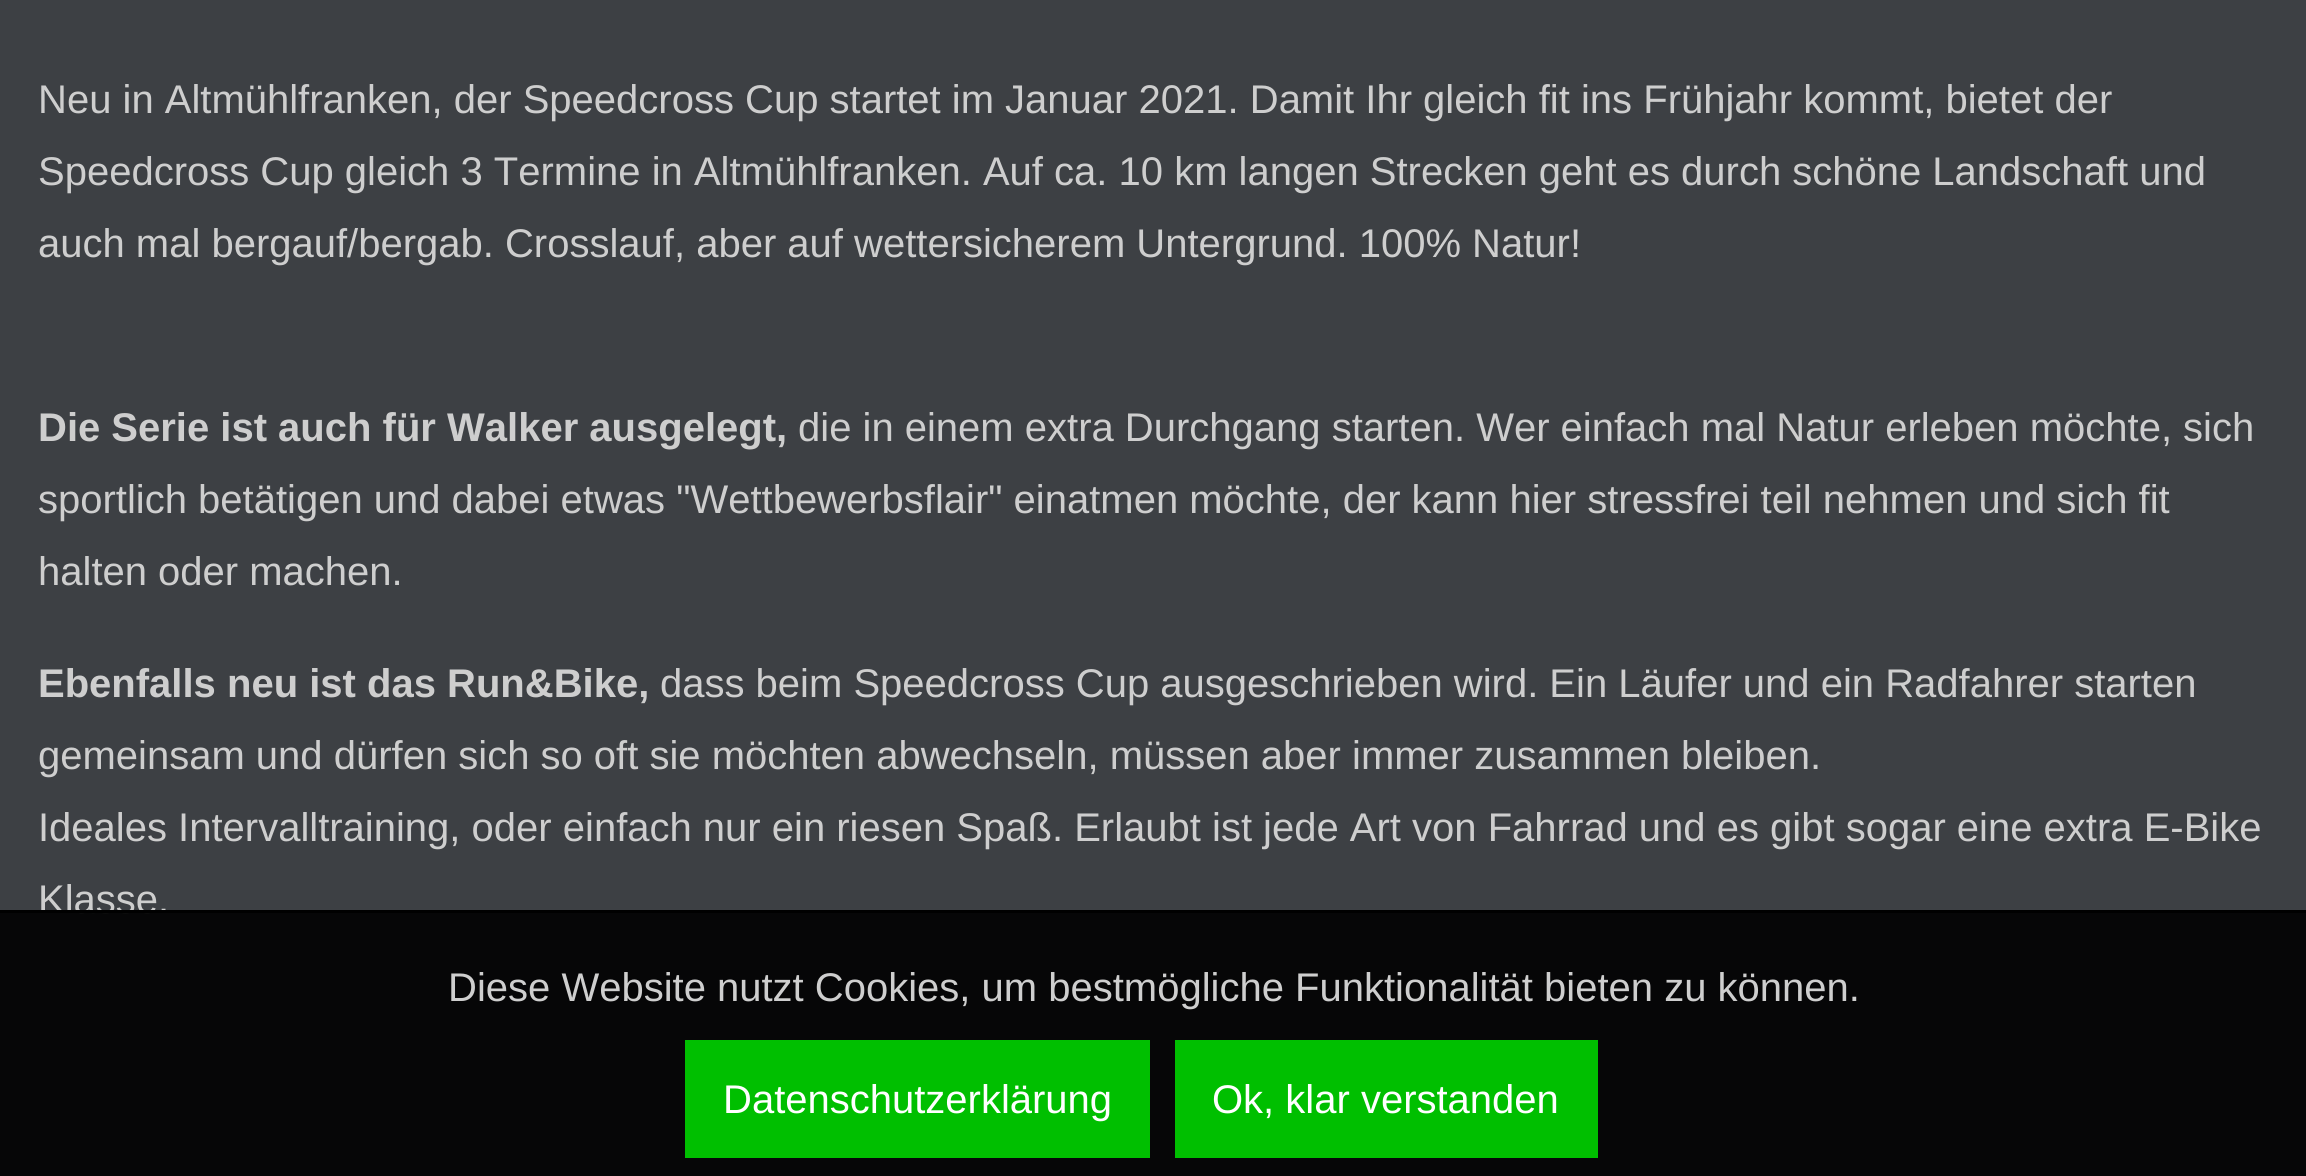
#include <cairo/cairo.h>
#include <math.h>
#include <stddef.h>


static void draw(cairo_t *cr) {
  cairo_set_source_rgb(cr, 61 / 255.0, 64 / 255.0, 68 / 255.0);
  cairo_paint(cr);
  cairo_select_font_face(cr, "Liberation Sans", CAIRO_FONT_SLANT_NORMAL, CAIRO_FONT_WEIGHT_NORMAL);
  cairo_set_font_size(cr, 40);
  cairo_set_source_rgb(cr, 206 / 255.0, 206 / 255.0, 206 / 255.0);
  cairo_move_to(cr, 38, 113);
  cairo_show_text(cr, "Neu in Altmühlfranken, der Speedcross Cup startet im Januar 2021. Damit Ihr gleich fit ins Frühjahr kommt, bietet der");
  cairo_move_to(cr, 38, 185);
  cairo_show_text(cr, "Speedcross Cup gleich 3 Termine in Altmühlfranken. Auf ca. 10 km langen Strecken geht es durch schöne Landschaft und");
  cairo_move_to(cr, 38, 257);
  cairo_show_text(cr, "auch mal bergauf/bergab. Crosslauf, aber auf wettersicherem Untergrund. 100% Natur!");
  cairo_select_font_face(cr, "Liberation Sans", CAIRO_FONT_SLANT_NORMAL, CAIRO_FONT_WEIGHT_BOLD);
  cairo_move_to(cr, 38, 441);
  cairo_show_text(cr, "Die Serie ist auch für Walker ausgelegt,");
  cairo_select_font_face(cr, "Liberation Sans", CAIRO_FONT_SLANT_NORMAL, CAIRO_FONT_WEIGHT_NORMAL);
  cairo_move_to(cr, 798, 441);
  cairo_show_text(cr, "die in einem extra Durchgang starten. Wer einfach mal Natur erleben möchte, sich");
  cairo_move_to(cr, 38, 513);
  cairo_show_text(cr, "sportlich betätigen und dabei etwas \"Wettbewerbsflair\" einatmen möchte, der kann hier stressfrei teil nehmen und sich fit");
  cairo_move_to(cr, 38, 585);
  cairo_show_text(cr, "halten oder machen.");
  cairo_select_font_face(cr, "Liberation Sans", CAIRO_FONT_SLANT_NORMAL, CAIRO_FONT_WEIGHT_BOLD);
  cairo_move_to(cr, 38, 697);
  cairo_show_text(cr, "Ebenfalls neu ist das Run&Bike,");
  cairo_select_font_face(cr, "Liberation Sans", CAIRO_FONT_SLANT_NORMAL, CAIRO_FONT_WEIGHT_NORMAL);
  cairo_move_to(cr, 660, 697);
  cairo_show_text(cr, "dass beim Speedcross Cup ausgeschrieben wird. Ein Läufer und ein Radfahrer starten");
  cairo_move_to(cr, 38, 769);
  cairo_show_text(cr, "gemeinsam und dürfen sich so oft sie möchten abwechseln, müssen aber immer zusammen bleiben.");
  cairo_move_to(cr, 38, 841);
  cairo_show_text(cr, "Ideales Intervalltraining, oder einfach nur ein riesen Spaß. Erlaubt ist jede Art von Fahrrad und es gibt sogar eine extra E-Bike");
  cairo_move_to(cr, 38, 913);
  cairo_show_text(cr, "Klasse.");
  cairo_set_source_rgba(cr, 0, 0, 0, 0.9);
  cairo_rectangle(cr, 0, 913, 2306, 263);
  cairo_fill(cr);
  cairo_set_source_rgb(cr, 0, 0, 0);
  cairo_rectangle(cr, 0, 910, 2306, 3);
  cairo_fill(cr);
  cairo_set_source_rgb(cr, 206 / 255.0, 206 / 255.0, 206 / 255.0);
  cairo_move_to(cr, 448, 1001);
  cairo_show_text(cr, "Diese Website nutzt Cookies, um bestmögliche Funktionalität bieten zu können.");
  cairo_set_source_rgb(cr, 0, 191 / 255.0, 0);
  cairo_rectangle(cr, 685, 1040, 465, 118);
  cairo_fill(cr);
  cairo_set_source_rgb(cr, 1, 1, 1);
  cairo_move_to(cr, 723, 1113);
  cairo_show_text(cr, "Datenschutzerklärung");
  cairo_set_source_rgb(cr, 0, 191 / 255.0, 0);
  cairo_rectangle(cr, 1175, 1040, 423, 118);
  cairo_fill(cr);
  cairo_set_source_rgb(cr, 1, 1, 1);
  cairo_move_to(cr, 1212, 1113);
  cairo_show_text(cr, "Ok, klar verstanden");
}

int main(void) {
  cairo_surface_t *surface = cairo_image_surface_create(CAIRO_FORMAT_RGB24, 2306, 1176);
  cairo_t *cr = cairo_create(surface);
  cairo_font_options_t *options = cairo_font_options_create();
  cairo_font_options_set_hint_metrics(options, CAIRO_HINT_METRICS_OFF);
  cairo_font_options_set_hint_style(options, CAIRO_HINT_STYLE_NONE);
  cairo_set_font_options(cr, options);
  cairo_set_miter_limit(cr, 4);
  draw(cr);
  cairo_surface_write_to_png(surface, "out.png");
  cairo_font_options_destroy(options);
  cairo_destroy(cr);
  cairo_surface_destroy(surface);
  return 0;
}
